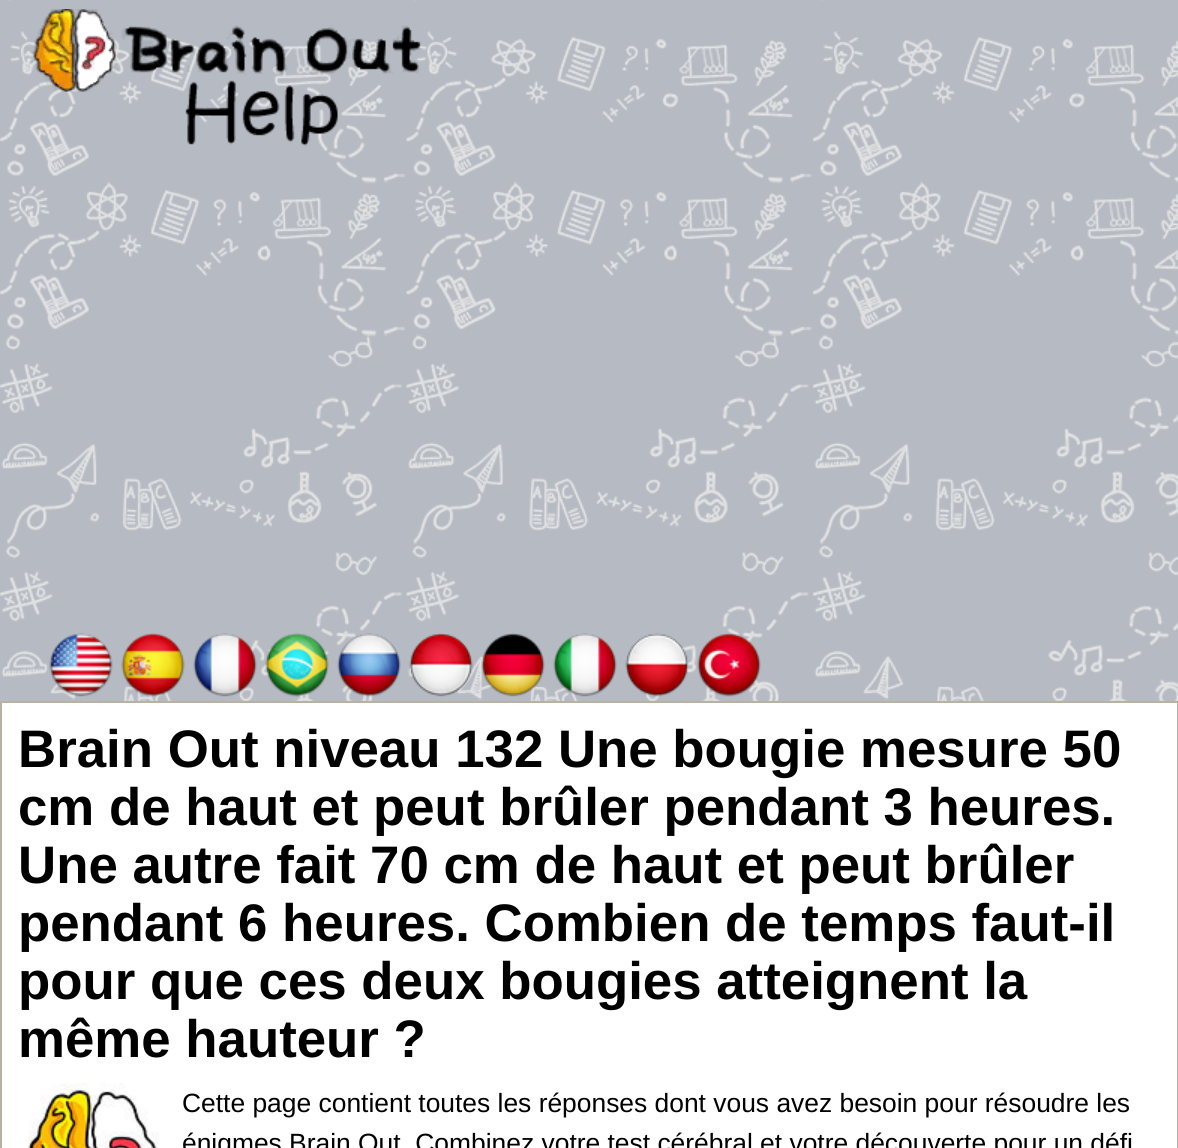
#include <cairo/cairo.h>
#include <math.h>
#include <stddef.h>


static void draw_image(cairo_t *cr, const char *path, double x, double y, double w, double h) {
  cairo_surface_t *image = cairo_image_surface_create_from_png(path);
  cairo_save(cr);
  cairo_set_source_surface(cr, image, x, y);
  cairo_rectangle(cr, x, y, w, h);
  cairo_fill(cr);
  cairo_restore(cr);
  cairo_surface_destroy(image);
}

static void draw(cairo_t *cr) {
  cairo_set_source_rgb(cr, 181 / 255.0, 186 / 255.0, 195 / 255.0);
  cairo_paint(cr);
  draw_image(cr, "images/1.png", 0, 0, 1178, 701);
  draw_image(cr, "images/2.png", 31, 9, 390, 137);
  draw_image(cr, "images/3.png", 49, 633, 64, 64);
  draw_image(cr, "images/4.png", 121, 633, 64, 64);
  draw_image(cr, "images/5.png", 193, 633, 64, 64);
  draw_image(cr, "images/6.png", 265, 633, 64, 64);
  draw_image(cr, "images/7.png", 337, 633, 64, 64);
  draw_image(cr, "images/8.png", 409, 633, 64, 64);
  draw_image(cr, "images/9.png", 481, 633, 64, 64);
  draw_image(cr, "images/10.png", 553, 633, 64, 64);
  draw_image(cr, "images/11.png", 625, 633, 64, 64);
  draw_image(cr, "images/12.png", 697, 633, 64, 64);
  cairo_set_source_rgb(cr, 1, 1, 1);
  cairo_rectangle(cr, 1, 702, 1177, 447);
  cairo_fill_preserve(cr);
  cairo_set_source_rgb(cr, 184 / 255.0, 178 / 255.0, 165 / 255.0);
  cairo_stroke(cr);
  draw_image(cr, "images/13.png", 28, 1083, 131, 65);
  cairo_select_font_face(cr, "Liberation Sans", CAIRO_FONT_SLANT_NORMAL, CAIRO_FONT_WEIGHT_BOLD);
  cairo_set_font_size(cr, 52.8);
  cairo_set_source_rgb(cr, 0, 0, 0);
  cairo_move_to(cr, 18, 767);
  cairo_show_text(cr, "Brain Out niveau 132 Une bougie mesure 50");
  cairo_move_to(cr, 18, 825);
  cairo_show_text(cr, "cm de haut et peut brûler pendant 3 heures.");
  cairo_move_to(cr, 18, 883);
  cairo_show_text(cr, "Une autre fait 70 cm de haut et peut brûler");
  cairo_move_to(cr, 18, 941);
  cairo_show_text(cr, "pendant 6 heures. Combien de temps faut-il");
  cairo_move_to(cr, 18, 999);
  cairo_show_text(cr, "pour que ces deux bougies atteignent la");
  cairo_move_to(cr, 18, 1057);
  cairo_show_text(cr, "même hauteur ?");
  cairo_select_font_face(cr, "Liberation Sans", CAIRO_FONT_SLANT_NORMAL, CAIRO_FONT_WEIGHT_NORMAL);
  cairo_set_font_size(cr, 26.4);
  cairo_move_to(cr, 182, 1112);
  cairo_show_text(cr, "Cette page contient toutes les réponses dont vous avez besoin pour résoudre les");
  cairo_move_to(cr, 182, 1152);
  cairo_show_text(cr, "énigmes Brain Out. Combinez votre test cérébral et votre découverte pour un défi");
}

int main(void) {
  cairo_surface_t *surface = cairo_image_surface_create(CAIRO_FORMAT_RGB24, 1178, 1148);
  cairo_t *cr = cairo_create(surface);
  cairo_font_options_t *options = cairo_font_options_create();
  cairo_font_options_set_hint_metrics(options, CAIRO_HINT_METRICS_OFF);
  cairo_font_options_set_hint_style(options, CAIRO_HINT_STYLE_NONE);
  cairo_set_font_options(cr, options);
  cairo_set_miter_limit(cr, 4);
  draw(cr);
  cairo_surface_write_to_png(surface, "out.png");
  cairo_font_options_destroy(options);
  cairo_destroy(cr);
  cairo_surface_destroy(surface);
  return 0;
}
